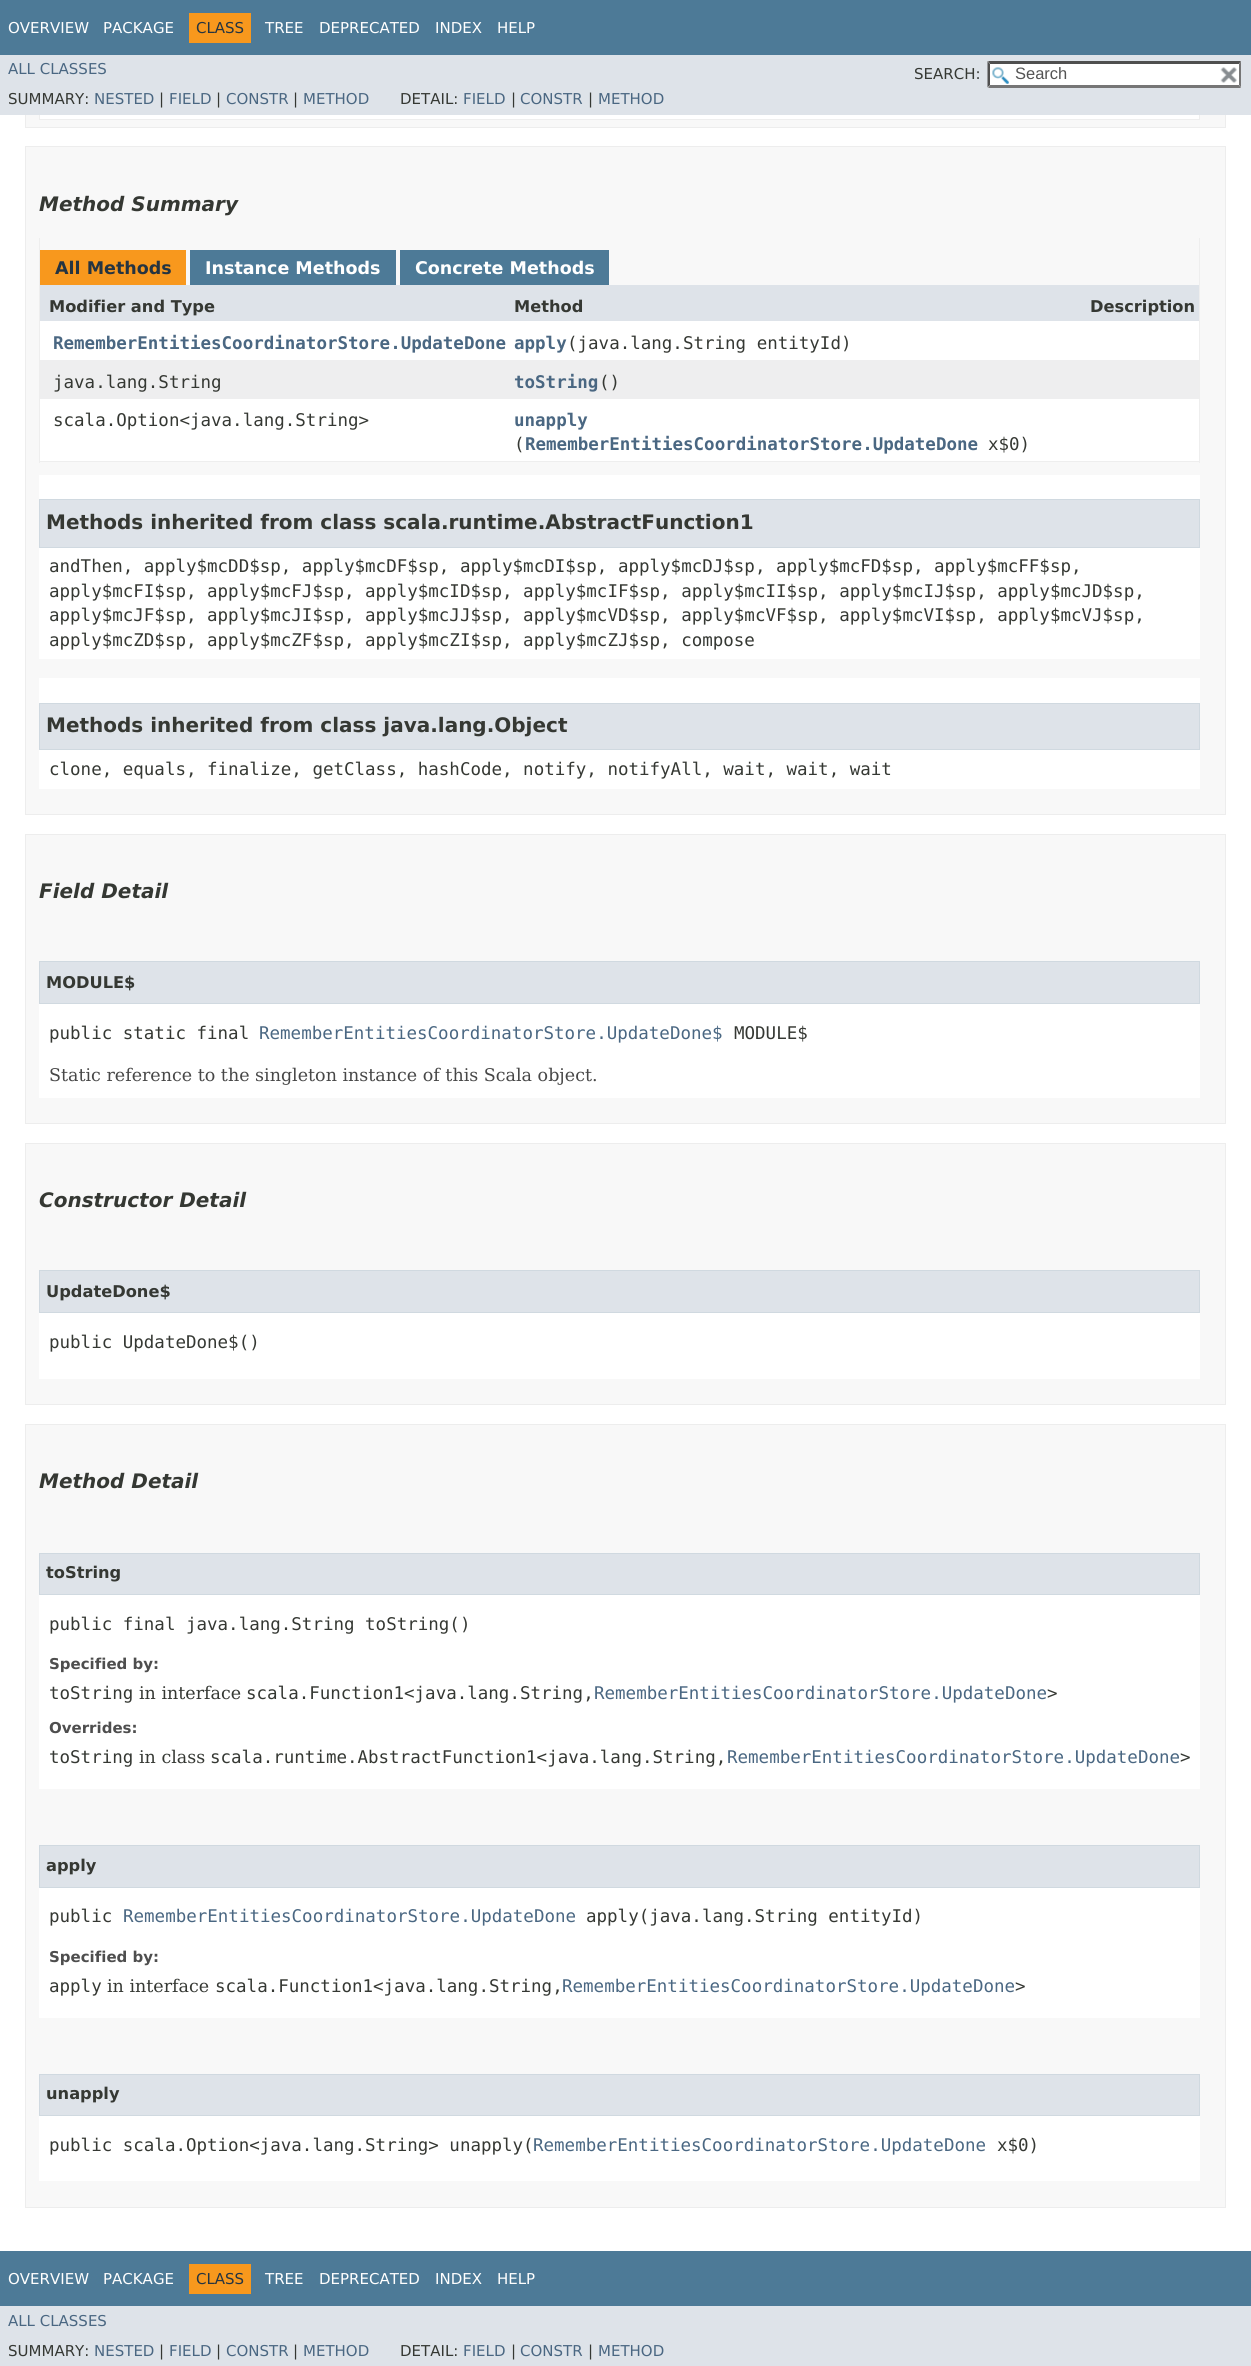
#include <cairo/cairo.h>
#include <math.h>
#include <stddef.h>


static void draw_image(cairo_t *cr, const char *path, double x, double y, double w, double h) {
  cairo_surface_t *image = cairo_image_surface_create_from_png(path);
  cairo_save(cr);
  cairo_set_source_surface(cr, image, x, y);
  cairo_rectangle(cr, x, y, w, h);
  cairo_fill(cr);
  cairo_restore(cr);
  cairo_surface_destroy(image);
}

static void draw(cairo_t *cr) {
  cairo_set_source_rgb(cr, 1, 1, 1);
  cairo_paint(cr);
  cairo_set_source_rgb(cr, 248 / 255.0, 248 / 255.0, 248 / 255.0);
  cairo_rectangle(cr, 26, 115, 1199, 12);
  cairo_fill(cr);
  cairo_rectangle(cr, 25.5, -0.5, 1200, 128);
  cairo_set_source_rgb(cr, 237 / 255.0, 237 / 255.0, 237 / 255.0);
  cairo_set_line_width(cr, 1);
  cairo_stroke(cr);
  cairo_set_source_rgb(cr, 77 / 255.0, 122 / 255.0, 151 / 255.0);
  cairo_rectangle(cr, 0, 0, 1251, 55);
  cairo_fill(cr);
  cairo_set_source_rgb(cr, 248 / 255.0, 152 / 255.0, 29 / 255.0);
  cairo_rectangle(cr, 189, 13, 62, 30);
  cairo_fill(cr);
  cairo_set_source_rgb(cr, 222 / 255.0, 227 / 255.0, 233 / 255.0);
  cairo_rectangle(cr, 0, 55, 1251, 60);
  cairo_fill(cr);
  cairo_set_source_rgb(cr, 1, 1, 1);
  cairo_rectangle(cr, 988, 61, 253, 27);
  cairo_fill(cr);
  draw_image(cr, "images/1.png", 992, 67, 17, 17);
  cairo_set_source_rgb(cr, 79 / 255.0, 79 / 255.0, 79 / 255.0);
  cairo_new_path(cr);
  cairo_move_to(cr, 988, 61);
  cairo_line_to(cr, 1241, 61);
  cairo_line_to(cr, 1239, 64);
  cairo_line_to(cr, 990, 64);
  cairo_close_path(cr);
  cairo_fill(cr);
  cairo_set_source_rgb(cr, 118 / 255.0, 118 / 255.0, 118 / 255.0);
  cairo_new_path(cr);
  cairo_move_to(cr, 1241, 61);
  cairo_line_to(cr, 1241, 87.5);
  cairo_line_to(cr, 1239, 85);
  cairo_line_to(cr, 1239, 64);
  cairo_close_path(cr);
  cairo_fill(cr);
  cairo_new_path(cr);
  cairo_move_to(cr, 1241, 88);
  cairo_line_to(cr, 988, 88);
  cairo_line_to(cr, 990, 85);
  cairo_line_to(cr, 1239, 85);
  cairo_close_path(cr);
  cairo_fill(cr);
  cairo_set_source_rgb(cr, 79 / 255.0, 79 / 255.0, 79 / 255.0);
  cairo_new_path(cr);
  cairo_move_to(cr, 987.5, 87.5);
  cairo_line_to(cr, 987.5, 61);
  cairo_line_to(cr, 990, 64);
  cairo_line_to(cr, 990, 85);
  cairo_close_path(cr);
  cairo_fill(cr);
  draw_image(cr, "images/2.png", 1220, 67, 17, 16);
  cairo_set_source_rgb(cr, 238 / 255.0, 238 / 255.0, 238 / 255.0);
  cairo_rectangle(cr, 1199, 115, 1, 5);
  cairo_fill(cr);
  cairo_rectangle(cr, 39, 119, 1161, 1);
  cairo_fill(cr);
  cairo_rectangle(cr, 39, 115, 1, 5);
  cairo_fill(cr);
  cairo_set_source_rgb(cr, 1, 1, 1);
  cairo_rectangle(cr, 40, 115, 1159, 4);
  cairo_fill(cr);
  cairo_set_source_rgb(cr, 248 / 255.0, 248 / 255.0, 248 / 255.0);
  cairo_rectangle(cr, 25.5, 146.5, 1200, 668);
  cairo_fill_preserve(cr);
  cairo_set_source_rgb(cr, 237 / 255.0, 237 / 255.0, 237 / 255.0);
  cairo_stroke(cr);
  cairo_set_source_rgb(cr, 238 / 255.0, 238 / 255.0, 238 / 255.0);
  cairo_rectangle(cr, 1199, 238, 1, 225);
  cairo_fill(cr);
  cairo_rectangle(cr, 39, 461, 1161, 1);
  cairo_fill(cr);
  cairo_rectangle(cr, 39, 238, 1, 225);
  cairo_fill(cr);
  cairo_set_source_rgb(cr, 248 / 255.0, 152 / 255.0, 29 / 255.0);
  cairo_rectangle(cr, 40, 250, 146, 35);
  cairo_fill(cr);
  cairo_set_source_rgb(cr, 77 / 255.0, 122 / 255.0, 151 / 255.0);
  cairo_rectangle(cr, 190, 250, 206, 35);
  cairo_fill(cr);
  cairo_rectangle(cr, 400, 250, 209, 35);
  cairo_fill(cr);
  cairo_set_source_rgb(cr, 222 / 255.0, 227 / 255.0, 233 / 255.0);
  cairo_rectangle(cr, 40, 285, 1159, 36);
  cairo_fill(cr);
  cairo_set_source_rgb(cr, 1, 1, 1);
  cairo_rectangle(cr, 40, 321, 1159, 39);
  cairo_fill(cr);
  cairo_set_source_rgb(cr, 238 / 255.0, 238 / 255.0, 239 / 255.0);
  cairo_rectangle(cr, 40, 360, 1159, 39);
  cairo_fill(cr);
  cairo_set_source_rgb(cr, 1, 1, 1);
  cairo_rectangle(cr, 40, 399, 1159, 62);
  cairo_fill(cr);
  cairo_rectangle(cr, 39, 475, 1161, 184);
  cairo_fill(cr);
  cairo_set_source_rgb(cr, 222 / 255.0, 227 / 255.0, 233 / 255.0);
  cairo_rectangle(cr, 39.5, 499.5, 1160, 48);
  cairo_fill_preserve(cr);
  cairo_set_source_rgb(cr, 208 / 255.0, 217 / 255.0, 224 / 255.0);
  cairo_stroke(cr);
  cairo_set_source_rgb(cr, 1, 1, 1);
  cairo_rectangle(cr, 39, 678, 1161, 111);
  cairo_fill(cr);
  cairo_set_source_rgb(cr, 222 / 255.0, 227 / 255.0, 233 / 255.0);
  cairo_rectangle(cr, 39.5, 703.5, 1160, 46);
  cairo_fill_preserve(cr);
  cairo_set_source_rgb(cr, 208 / 255.0, 217 / 255.0, 224 / 255.0);
  cairo_stroke(cr);
  cairo_set_source_rgb(cr, 248 / 255.0, 248 / 255.0, 248 / 255.0);
  cairo_rectangle(cr, 25.5, 834.5, 1200, 289);
  cairo_fill_preserve(cr);
  cairo_set_source_rgb(cr, 237 / 255.0, 237 / 255.0, 237 / 255.0);
  cairo_stroke(cr);
  cairo_set_source_rgb(cr, 1, 1, 1);
  cairo_rectangle(cr, 39, 1004, 1161, 94);
  cairo_fill(cr);
  cairo_set_source_rgb(cr, 222 / 255.0, 227 / 255.0, 233 / 255.0);
  cairo_rectangle(cr, 39.5, 961.5, 1160, 42);
  cairo_fill_preserve(cr);
  cairo_set_source_rgb(cr, 208 / 255.0, 217 / 255.0, 224 / 255.0);
  cairo_stroke(cr);
  cairo_set_source_rgb(cr, 248 / 255.0, 248 / 255.0, 248 / 255.0);
  cairo_rectangle(cr, 25.5, 1143.5, 1200, 261);
  cairo_fill_preserve(cr);
  cairo_set_source_rgb(cr, 237 / 255.0, 237 / 255.0, 237 / 255.0);
  cairo_stroke(cr);
  cairo_set_source_rgb(cr, 1, 1, 1);
  cairo_rectangle(cr, 39, 1313, 1161, 66);
  cairo_fill(cr);
  cairo_set_source_rgb(cr, 222 / 255.0, 227 / 255.0, 233 / 255.0);
  cairo_rectangle(cr, 39.5, 1270.5, 1160, 42);
  cairo_fill_preserve(cr);
  cairo_set_source_rgb(cr, 208 / 255.0, 217 / 255.0, 224 / 255.0);
  cairo_stroke(cr);
  cairo_set_source_rgb(cr, 248 / 255.0, 248 / 255.0, 248 / 255.0);
  cairo_rectangle(cr, 25.5, 1424.5, 1200, 783);
  cairo_fill_preserve(cr);
  cairo_set_source_rgb(cr, 237 / 255.0, 237 / 255.0, 237 / 255.0);
  cairo_stroke(cr);
  cairo_set_source_rgb(cr, 1, 1, 1);
  cairo_rectangle(cr, 39, 1595, 1161, 194);
  cairo_fill(cr);
  cairo_set_source_rgb(cr, 222 / 255.0, 227 / 255.0, 233 / 255.0);
  cairo_rectangle(cr, 39.5, 1553.5, 1160, 41);
  cairo_fill_preserve(cr);
  cairo_set_source_rgb(cr, 208 / 255.0, 217 / 255.0, 224 / 255.0);
  cairo_stroke(cr);
  cairo_set_source_rgb(cr, 1, 1, 1);
  cairo_rectangle(cr, 39, 1888, 1161, 130);
  cairo_fill(cr);
  cairo_set_source_rgb(cr, 222 / 255.0, 227 / 255.0, 233 / 255.0);
  cairo_rectangle(cr, 39.5, 1845.5, 1160, 42);
  cairo_fill_preserve(cr);
  cairo_set_source_rgb(cr, 208 / 255.0, 217 / 255.0, 224 / 255.0);
  cairo_stroke(cr);
  cairo_set_source_rgb(cr, 1, 1, 1);
  cairo_rectangle(cr, 39, 2116, 1161, 65);
  cairo_fill(cr);
  cairo_set_source_rgb(cr, 222 / 255.0, 227 / 255.0, 233 / 255.0);
  cairo_rectangle(cr, 39.5, 2074.5, 1160, 41);
  cairo_fill_preserve(cr);
  cairo_set_source_rgb(cr, 208 / 255.0, 217 / 255.0, 224 / 255.0);
  cairo_stroke(cr);
  cairo_set_source_rgb(cr, 77 / 255.0, 122 / 255.0, 151 / 255.0);
  cairo_rectangle(cr, 0, 2251, 1251, 55);
  cairo_fill(cr);
  cairo_set_source_rgb(cr, 248 / 255.0, 152 / 255.0, 29 / 255.0);
  cairo_rectangle(cr, 189, 2264, 62, 30);
  cairo_fill(cr);
  cairo_set_source_rgb(cr, 222 / 255.0, 227 / 255.0, 233 / 255.0);
  cairo_rectangle(cr, 0, 2306, 1251, 60);
  cairo_fill(cr);
  cairo_select_font_face(cr, "DejaVu Sans", CAIRO_FONT_SLANT_NORMAL, CAIRO_FONT_WEIGHT_NORMAL);
  cairo_set_font_size(cr, 15);
  cairo_set_source_rgb(cr, 1, 1, 1);
  cairo_move_to(cr, 8, 33);
  cairo_show_text(cr, "OVERVIEW");
  cairo_move_to(cr, 103, 33);
  cairo_show_text(cr, "PACKAGE");
  cairo_set_source_rgb(cr, 37 / 255.0, 52 / 255.0, 65 / 255.0);
  cairo_move_to(cr, 196, 33);
  cairo_show_text(cr, "CLASS");
  cairo_set_source_rgb(cr, 1, 1, 1);
  cairo_move_to(cr, 265, 33);
  cairo_show_text(cr, "TREE");
  cairo_move_to(cr, 319, 33);
  cairo_show_text(cr, "DEPRECATED");
  cairo_move_to(cr, 435, 33);
  cairo_show_text(cr, "INDEX");
  cairo_move_to(cr, 497, 33);
  cairo_show_text(cr, "HELP");
  cairo_set_source_rgb(cr, 74 / 255.0, 103 / 255.0, 130 / 255.0);
  cairo_move_to(cr, 8, 74);
  cairo_show_text(cr, "ALL CLASSES");
  cairo_set_source_rgb(cr, 53 / 255.0, 56 / 255.0, 51 / 255.0);
  cairo_move_to(cr, 914, 79);
  cairo_show_text(cr, "SEARCH:");
  cairo_select_font_face(cr, "Liberation Sans", CAIRO_FONT_SLANT_NORMAL, CAIRO_FONT_WEIGHT_NORMAL);
  cairo_set_font_size(cr, 16.5);
  cairo_set_source_rgb(cr, 84 / 255.0, 84 / 255.0, 84 / 255.0);
  cairo_move_to(cr, 1015, 79);
  cairo_show_text(cr, "Search");
  cairo_select_font_face(cr, "DejaVu Sans", CAIRO_FONT_SLANT_NORMAL, CAIRO_FONT_WEIGHT_NORMAL);
  cairo_set_font_size(cr, 15);
  cairo_set_source_rgb(cr, 53 / 255.0, 56 / 255.0, 51 / 255.0);
  cairo_move_to(cr, 8, 104);
  cairo_show_text(cr, "SUMMARY:");
  cairo_set_source_rgb(cr, 74 / 255.0, 103 / 255.0, 130 / 255.0);
  cairo_move_to(cr, 94, 104);
  cairo_show_text(cr, "NESTED");
  cairo_set_source_rgb(cr, 53 / 255.0, 56 / 255.0, 51 / 255.0);
  cairo_move_to(cr, 159, 104);
  cairo_show_text(cr, "|");
  cairo_set_source_rgb(cr, 74 / 255.0, 103 / 255.0, 130 / 255.0);
  cairo_move_to(cr, 169, 104);
  cairo_show_text(cr, "FIELD");
  cairo_set_source_rgb(cr, 53 / 255.0, 56 / 255.0, 51 / 255.0);
  cairo_move_to(cr, 216, 104);
  cairo_show_text(cr, "|");
  cairo_set_source_rgb(cr, 74 / 255.0, 103 / 255.0, 130 / 255.0);
  cairo_move_to(cr, 226, 104);
  cairo_show_text(cr, "CONSTR");
  cairo_set_source_rgb(cr, 53 / 255.0, 56 / 255.0, 51 / 255.0);
  cairo_move_to(cr, 293, 104);
  cairo_show_text(cr, "|");
  cairo_set_source_rgb(cr, 74 / 255.0, 103 / 255.0, 130 / 255.0);
  cairo_move_to(cr, 303, 104);
  cairo_show_text(cr, "METHOD");
  cairo_set_source_rgb(cr, 53 / 255.0, 56 / 255.0, 51 / 255.0);
  cairo_move_to(cr, 400, 104);
  cairo_show_text(cr, "DETAIL:");
  cairo_set_source_rgb(cr, 74 / 255.0, 103 / 255.0, 130 / 255.0);
  cairo_move_to(cr, 463, 104);
  cairo_show_text(cr, "FIELD");
  cairo_set_source_rgb(cr, 53 / 255.0, 56 / 255.0, 51 / 255.0);
  cairo_move_to(cr, 511, 104);
  cairo_show_text(cr, "|");
  cairo_set_source_rgb(cr, 74 / 255.0, 103 / 255.0, 130 / 255.0);
  cairo_move_to(cr, 520, 104);
  cairo_show_text(cr, "CONSTR");
  cairo_set_source_rgb(cr, 53 / 255.0, 56 / 255.0, 51 / 255.0);
  cairo_move_to(cr, 588, 104);
  cairo_show_text(cr, "|");
  cairo_set_source_rgb(cr, 74 / 255.0, 103 / 255.0, 130 / 255.0);
  cairo_move_to(cr, 598, 104);
  cairo_show_text(cr, "METHOD");
  cairo_select_font_face(cr, "DejaVu Sans", CAIRO_FONT_SLANT_ITALIC, CAIRO_FONT_WEIGHT_BOLD);
  cairo_set_font_size(cr, 20);
  cairo_set_source_rgb(cr, 53 / 255.0, 56 / 255.0, 51 / 255.0);
  cairo_move_to(cr, 39, 211);
  cairo_show_text(cr, "Method Summary");
  cairo_select_font_face(cr, "DejaVu Sans", CAIRO_FONT_SLANT_NORMAL, CAIRO_FONT_WEIGHT_BOLD);
  cairo_set_font_size(cr, 17.5);
  cairo_set_source_rgb(cr, 37 / 255.0, 52 / 255.0, 65 / 255.0);
  cairo_move_to(cr, 55, 274);
  cairo_show_text(cr, "All Methods");
  cairo_set_source_rgb(cr, 1, 1, 1);
  cairo_move_to(cr, 205, 274);
  cairo_show_text(cr, "Instance Methods");
  cairo_move_to(cr, 415, 274);
  cairo_show_text(cr, "Concrete Methods");
  cairo_set_font_size(cr, 16.25);
  cairo_set_source_rgb(cr, 53 / 255.0, 56 / 255.0, 51 / 255.0);
  cairo_move_to(cr, 49, 312);
  cairo_show_text(cr, "Modifier and Type");
  cairo_move_to(cr, 514, 312);
  cairo_show_text(cr, "Method");
  cairo_move_to(cr, 1090, 312);
  cairo_show_text(cr, "Description");
  cairo_select_font_face(cr, "DejaVu Sans Mono", CAIRO_FONT_SLANT_NORMAL, CAIRO_FONT_WEIGHT_BOLD);
  cairo_set_font_size(cr, 17.5);
  cairo_set_source_rgb(cr, 74 / 255.0, 103 / 255.0, 130 / 255.0);
  cairo_move_to(cr, 53, 349);
  cairo_show_text(cr, "RememberEntitiesCoordinatorStore.UpdateDone");
  cairo_move_to(cr, 514, 349);
  cairo_show_text(cr, "apply");
  cairo_select_font_face(cr, "DejaVu Sans Mono", CAIRO_FONT_SLANT_NORMAL, CAIRO_FONT_WEIGHT_NORMAL);
  cairo_set_source_rgb(cr, 53 / 255.0, 56 / 255.0, 51 / 255.0);
  cairo_move_to(cr, 567, 349);
  cairo_show_text(cr, "(java.lang.String entityId)");
  cairo_move_to(cr, 53, 388);
  cairo_show_text(cr, "java.lang.String");
  cairo_select_font_face(cr, "DejaVu Sans Mono", CAIRO_FONT_SLANT_NORMAL, CAIRO_FONT_WEIGHT_BOLD);
  cairo_set_source_rgb(cr, 74 / 255.0, 103 / 255.0, 130 / 255.0);
  cairo_move_to(cr, 514, 388);
  cairo_show_text(cr, "toString");
  cairo_select_font_face(cr, "DejaVu Sans Mono", CAIRO_FONT_SLANT_NORMAL, CAIRO_FONT_WEIGHT_NORMAL);
  cairo_set_source_rgb(cr, 53 / 255.0, 56 / 255.0, 51 / 255.0);
  cairo_move_to(cr, 599, 388);
  cairo_show_text(cr, "()");
  cairo_move_to(cr, 53, 426);
  cairo_show_text(cr, "scala.Option<java.lang.String>");
  cairo_select_font_face(cr, "DejaVu Sans Mono", CAIRO_FONT_SLANT_NORMAL, CAIRO_FONT_WEIGHT_BOLD);
  cairo_set_source_rgb(cr, 74 / 255.0, 103 / 255.0, 130 / 255.0);
  cairo_move_to(cr, 514, 426);
  cairo_show_text(cr, "unapply");
  cairo_select_font_face(cr, "DejaVu Sans Mono", CAIRO_FONT_SLANT_NORMAL, CAIRO_FONT_WEIGHT_NORMAL);
  cairo_set_source_rgb(cr, 53 / 255.0, 56 / 255.0, 51 / 255.0);
  cairo_move_to(cr, 514, 450);
  cairo_show_text(cr, "(");
  cairo_select_font_face(cr, "DejaVu Sans Mono", CAIRO_FONT_SLANT_NORMAL, CAIRO_FONT_WEIGHT_BOLD);
  cairo_set_source_rgb(cr, 74 / 255.0, 103 / 255.0, 130 / 255.0);
  cairo_move_to(cr, 525, 450);
  cairo_show_text(cr, "RememberEntitiesCoordinatorStore.UpdateDone");
  cairo_select_font_face(cr, "DejaVu Sans Mono", CAIRO_FONT_SLANT_NORMAL, CAIRO_FONT_WEIGHT_NORMAL);
  cairo_set_source_rgb(cr, 53 / 255.0, 56 / 255.0, 51 / 255.0);
  cairo_move_to(cr, 988, 450);
  cairo_show_text(cr, "x$0)");
  cairo_select_font_face(cr, "DejaVu Sans", CAIRO_FONT_SLANT_NORMAL, CAIRO_FONT_WEIGHT_BOLD);
  cairo_set_font_size(cr, 20);
  cairo_move_to(cr, 46, 529);
  cairo_show_text(cr, "Methods inherited from class scala.runtime.AbstractFunction1");
  cairo_select_font_face(cr, "DejaVu Sans Mono", CAIRO_FONT_SLANT_NORMAL, CAIRO_FONT_WEIGHT_NORMAL);
  cairo_set_font_size(cr, 17.5);
  cairo_move_to(cr, 49, 572);
  cairo_show_text(cr, "andThen, apply$mcDD$sp, apply$mcDF$sp, apply$mcDI$sp, apply$mcDJ$sp, apply$mcFD$sp, apply$mcFF$sp,");
  cairo_move_to(cr, 49, 597);
  cairo_show_text(cr, "apply$mcFI$sp, apply$mcFJ$sp, apply$mcID$sp, apply$mcIF$sp, apply$mcII$sp, apply$mcIJ$sp, apply$mcJD$sp,");
  cairo_move_to(cr, 49, 621);
  cairo_show_text(cr, "apply$mcJF$sp, apply$mcJI$sp, apply$mcJJ$sp, apply$mcVD$sp, apply$mcVF$sp, apply$mcVI$sp, apply$mcVJ$sp,");
  cairo_move_to(cr, 49, 646);
  cairo_show_text(cr, "apply$mcZD$sp, apply$mcZF$sp, apply$mcZI$sp, apply$mcZJ$sp, compose");
  cairo_select_font_face(cr, "DejaVu Sans", CAIRO_FONT_SLANT_NORMAL, CAIRO_FONT_WEIGHT_BOLD);
  cairo_set_font_size(cr, 20);
  cairo_move_to(cr, 46, 732);
  cairo_show_text(cr, "Methods inherited from class java.lang.Object");
  cairo_select_font_face(cr, "DejaVu Sans Mono", CAIRO_FONT_SLANT_NORMAL, CAIRO_FONT_WEIGHT_NORMAL);
  cairo_set_font_size(cr, 17.5);
  cairo_move_to(cr, 49, 775);
  cairo_show_text(cr, "clone, equals, finalize, getClass, hashCode, notify, notifyAll, wait, wait, wait");
  cairo_select_font_face(cr, "DejaVu Sans", CAIRO_FONT_SLANT_ITALIC, CAIRO_FONT_WEIGHT_BOLD);
  cairo_set_font_size(cr, 20);
  cairo_move_to(cr, 39, 898);
  cairo_show_text(cr, "Field Detail");
  cairo_select_font_face(cr, "DejaVu Sans", CAIRO_FONT_SLANT_NORMAL, CAIRO_FONT_WEIGHT_BOLD);
  cairo_set_font_size(cr, 16.25);
  cairo_move_to(cr, 46, 988);
  cairo_show_text(cr, "MODULE$");
  cairo_select_font_face(cr, "DejaVu Sans Mono", CAIRO_FONT_SLANT_NORMAL, CAIRO_FONT_WEIGHT_NORMAL);
  cairo_set_font_size(cr, 17.5);
  cairo_move_to(cr, 49, 1039);
  cairo_show_text(cr, "public static final");
  cairo_set_source_rgb(cr, 74 / 255.0, 103 / 255.0, 130 / 255.0);
  cairo_move_to(cr, 259, 1039);
  cairo_show_text(cr, "RememberEntitiesCoordinatorStore.UpdateDone$");
  cairo_set_source_rgb(cr, 53 / 255.0, 56 / 255.0, 51 / 255.0);
  cairo_move_to(cr, 734, 1039);
  cairo_show_text(cr, "MODULE$");
  cairo_select_font_face(cr, "DejaVu Serif", CAIRO_FONT_SLANT_NORMAL, CAIRO_FONT_WEIGHT_NORMAL);
  cairo_set_source_rgb(cr, 71 / 255.0, 71 / 255.0, 71 / 255.0);
  cairo_move_to(cr, 49, 1081);
  cairo_show_text(cr, "Static reference to the singleton instance of this Scala object.");
  cairo_select_font_face(cr, "DejaVu Sans", CAIRO_FONT_SLANT_ITALIC, CAIRO_FONT_WEIGHT_BOLD);
  cairo_set_font_size(cr, 20);
  cairo_set_source_rgb(cr, 53 / 255.0, 56 / 255.0, 51 / 255.0);
  cairo_move_to(cr, 39, 1207);
  cairo_show_text(cr, "Constructor Detail");
  cairo_select_font_face(cr, "DejaVu Sans", CAIRO_FONT_SLANT_NORMAL, CAIRO_FONT_WEIGHT_BOLD);
  cairo_set_font_size(cr, 16.25);
  cairo_move_to(cr, 46, 1297);
  cairo_show_text(cr, "UpdateDone$");
  cairo_select_font_face(cr, "DejaVu Sans Mono", CAIRO_FONT_SLANT_NORMAL, CAIRO_FONT_WEIGHT_NORMAL);
  cairo_set_font_size(cr, 17.5);
  cairo_move_to(cr, 49, 1348);
  cairo_show_text(cr, "public UpdateDone$()");
  cairo_select_font_face(cr, "DejaVu Sans", CAIRO_FONT_SLANT_ITALIC, CAIRO_FONT_WEIGHT_BOLD);
  cairo_set_font_size(cr, 20);
  cairo_move_to(cr, 39, 1488);
  cairo_show_text(cr, "Method Detail");
  cairo_select_font_face(cr, "DejaVu Sans", CAIRO_FONT_SLANT_NORMAL, CAIRO_FONT_WEIGHT_BOLD);
  cairo_set_font_size(cr, 16.25);
  cairo_move_to(cr, 46, 1578);
  cairo_show_text(cr, "toString");
  cairo_select_font_face(cr, "DejaVu Sans Mono", CAIRO_FONT_SLANT_NORMAL, CAIRO_FONT_WEIGHT_NORMAL);
  cairo_set_font_size(cr, 17.5);
  cairo_move_to(cr, 49, 1630);
  cairo_show_text(cr, "public final java.lang.String toString()");
  cairo_select_font_face(cr, "DejaVu Sans", CAIRO_FONT_SLANT_NORMAL, CAIRO_FONT_WEIGHT_BOLD);
  cairo_set_font_size(cr, 15);
  cairo_set_source_rgb(cr, 78 / 255.0, 78 / 255.0, 78 / 255.0);
  cairo_move_to(cr, 49, 1669);
  cairo_show_text(cr, "Specified by:");
  cairo_select_font_face(cr, "DejaVu Sans Mono", CAIRO_FONT_SLANT_NORMAL, CAIRO_FONT_WEIGHT_NORMAL);
  cairo_set_font_size(cr, 17.5);
  cairo_set_source_rgb(cr, 53 / 255.0, 56 / 255.0, 51 / 255.0);
  cairo_move_to(cr, 49, 1699);
  cairo_show_text(cr, "toString");
  cairo_select_font_face(cr, "DejaVu Serif", CAIRO_FONT_SLANT_NORMAL, CAIRO_FONT_WEIGHT_NORMAL);
  cairo_move_to(cr, 139, 1699);
  cairo_show_text(cr, "in interface");
  cairo_select_font_face(cr, "DejaVu Sans Mono", CAIRO_FONT_SLANT_NORMAL, CAIRO_FONT_WEIGHT_NORMAL);
  cairo_move_to(cr, 246, 1699);
  cairo_show_text(cr, "scala.Function1<java.lang.String,");
  cairo_set_source_rgb(cr, 74 / 255.0, 103 / 255.0, 130 / 255.0);
  cairo_move_to(cr, 594, 1699);
  cairo_show_text(cr, "RememberEntitiesCoordinatorStore.UpdateDone");
  cairo_set_source_rgb(cr, 53 / 255.0, 56 / 255.0, 51 / 255.0);
  cairo_move_to(cr, 1047, 1699);
  cairo_show_text(cr, ">");
  cairo_select_font_face(cr, "DejaVu Sans", CAIRO_FONT_SLANT_NORMAL, CAIRO_FONT_WEIGHT_BOLD);
  cairo_set_font_size(cr, 15);
  cairo_set_source_rgb(cr, 78 / 255.0, 78 / 255.0, 78 / 255.0);
  cairo_move_to(cr, 49, 1733);
  cairo_show_text(cr, "Overrides:");
  cairo_select_font_face(cr, "DejaVu Sans Mono", CAIRO_FONT_SLANT_NORMAL, CAIRO_FONT_WEIGHT_NORMAL);
  cairo_set_font_size(cr, 17.5);
  cairo_set_source_rgb(cr, 53 / 255.0, 56 / 255.0, 51 / 255.0);
  cairo_move_to(cr, 49, 1763);
  cairo_show_text(cr, "toString");
  cairo_select_font_face(cr, "DejaVu Serif", CAIRO_FONT_SLANT_NORMAL, CAIRO_FONT_WEIGHT_NORMAL);
  cairo_move_to(cr, 139, 1763);
  cairo_show_text(cr, "in class");
  cairo_select_font_face(cr, "DejaVu Sans Mono", CAIRO_FONT_SLANT_NORMAL, CAIRO_FONT_WEIGHT_NORMAL);
  cairo_move_to(cr, 210, 1763);
  cairo_show_text(cr, "scala.runtime.AbstractFunction1<java.lang.String,");
  cairo_set_source_rgb(cr, 74 / 255.0, 103 / 255.0, 130 / 255.0);
  cairo_move_to(cr, 727, 1763);
  cairo_show_text(cr, "RememberEntitiesCoordinatorStore.UpdateDone");
  cairo_set_source_rgb(cr, 53 / 255.0, 56 / 255.0, 51 / 255.0);
  cairo_move_to(cr, 1180, 1763);
  cairo_show_text(cr, ">");
  cairo_select_font_face(cr, "DejaVu Sans", CAIRO_FONT_SLANT_NORMAL, CAIRO_FONT_WEIGHT_BOLD);
  cairo_set_font_size(cr, 16.25);
  cairo_move_to(cr, 46, 1871);
  cairo_show_text(cr, "apply");
  cairo_select_font_face(cr, "DejaVu Sans Mono", CAIRO_FONT_SLANT_NORMAL, CAIRO_FONT_WEIGHT_NORMAL);
  cairo_set_font_size(cr, 17.5);
  cairo_move_to(cr, 49, 1922);
  cairo_show_text(cr, "public");
  cairo_set_source_rgb(cr, 74 / 255.0, 103 / 255.0, 130 / 255.0);
  cairo_move_to(cr, 123, 1922);
  cairo_show_text(cr, "RememberEntitiesCoordinatorStore.UpdateDone");
  cairo_set_source_rgb(cr, 53 / 255.0, 56 / 255.0, 51 / 255.0);
  cairo_move_to(cr, 586, 1922);
  cairo_show_text(cr, "apply(java.lang.String entityId)");
  cairo_select_font_face(cr, "DejaVu Sans", CAIRO_FONT_SLANT_NORMAL, CAIRO_FONT_WEIGHT_BOLD);
  cairo_set_font_size(cr, 15);
  cairo_set_source_rgb(cr, 78 / 255.0, 78 / 255.0, 78 / 255.0);
  cairo_move_to(cr, 49, 1962);
  cairo_show_text(cr, "Specified by:");
  cairo_select_font_face(cr, "DejaVu Sans Mono", CAIRO_FONT_SLANT_NORMAL, CAIRO_FONT_WEIGHT_NORMAL);
  cairo_set_font_size(cr, 17.5);
  cairo_set_source_rgb(cr, 53 / 255.0, 56 / 255.0, 51 / 255.0);
  cairo_move_to(cr, 49, 1992);
  cairo_show_text(cr, "apply");
  cairo_select_font_face(cr, "DejaVu Serif", CAIRO_FONT_SLANT_NORMAL, CAIRO_FONT_WEIGHT_NORMAL);
  cairo_move_to(cr, 107, 1992);
  cairo_show_text(cr, "in interface");
  cairo_select_font_face(cr, "DejaVu Sans Mono", CAIRO_FONT_SLANT_NORMAL, CAIRO_FONT_WEIGHT_NORMAL);
  cairo_move_to(cr, 215, 1992);
  cairo_show_text(cr, "scala.Function1<java.lang.String,");
  cairo_set_source_rgb(cr, 74 / 255.0, 103 / 255.0, 130 / 255.0);
  cairo_move_to(cr, 562, 1992);
  cairo_show_text(cr, "RememberEntitiesCoordinatorStore.UpdateDone");
  cairo_set_source_rgb(cr, 53 / 255.0, 56 / 255.0, 51 / 255.0);
  cairo_move_to(cr, 1015, 1992);
  cairo_show_text(cr, ">");
  cairo_select_font_face(cr, "DejaVu Sans", CAIRO_FONT_SLANT_NORMAL, CAIRO_FONT_WEIGHT_BOLD);
  cairo_set_font_size(cr, 16.25);
  cairo_move_to(cr, 46, 2099);
  cairo_show_text(cr, "unapply");
  cairo_select_font_face(cr, "DejaVu Sans Mono", CAIRO_FONT_SLANT_NORMAL, CAIRO_FONT_WEIGHT_NORMAL);
  cairo_set_font_size(cr, 17.5);
  cairo_move_to(cr, 49, 2151);
  cairo_show_text(cr, "public scala.Option<java.lang.String> unapply(");
  cairo_set_source_rgb(cr, 74 / 255.0, 103 / 255.0, 130 / 255.0);
  cairo_move_to(cr, 533, 2151);
  cairo_show_text(cr, "RememberEntitiesCoordinatorStore.UpdateDone");
  cairo_set_source_rgb(cr, 53 / 255.0, 56 / 255.0, 51 / 255.0);
  cairo_move_to(cr, 997, 2151);
  cairo_show_text(cr, "x$0)");
  cairo_select_font_face(cr, "DejaVu Sans", CAIRO_FONT_SLANT_NORMAL, CAIRO_FONT_WEIGHT_NORMAL);
  cairo_set_font_size(cr, 15);
  cairo_set_source_rgb(cr, 1, 1, 1);
  cairo_move_to(cr, 8, 2284);
  cairo_show_text(cr, "OVERVIEW");
  cairo_move_to(cr, 103, 2284);
  cairo_show_text(cr, "PACKAGE");
  cairo_set_source_rgb(cr, 37 / 255.0, 52 / 255.0, 65 / 255.0);
  cairo_move_to(cr, 196, 2284);
  cairo_show_text(cr, "CLASS");
  cairo_set_source_rgb(cr, 1, 1, 1);
  cairo_move_to(cr, 265, 2284);
  cairo_show_text(cr, "TREE");
  cairo_move_to(cr, 319, 2284);
  cairo_show_text(cr, "DEPRECATED");
  cairo_move_to(cr, 435, 2284);
  cairo_show_text(cr, "INDEX");
  cairo_move_to(cr, 497, 2284);
  cairo_show_text(cr, "HELP");
  cairo_set_source_rgb(cr, 74 / 255.0, 103 / 255.0, 130 / 255.0);
  cairo_move_to(cr, 8, 2326);
  cairo_show_text(cr, "ALL CLASSES");
  cairo_set_source_rgb(cr, 53 / 255.0, 56 / 255.0, 51 / 255.0);
  cairo_move_to(cr, 8, 2356);
  cairo_show_text(cr, "SUMMARY:");
  cairo_set_source_rgb(cr, 74 / 255.0, 103 / 255.0, 130 / 255.0);
  cairo_move_to(cr, 94, 2356);
  cairo_show_text(cr, "NESTED");
  cairo_set_source_rgb(cr, 53 / 255.0, 56 / 255.0, 51 / 255.0);
  cairo_move_to(cr, 159, 2356);
  cairo_show_text(cr, "|");
  cairo_set_source_rgb(cr, 74 / 255.0, 103 / 255.0, 130 / 255.0);
  cairo_move_to(cr, 169, 2356);
  cairo_show_text(cr, "FIELD");
  cairo_set_source_rgb(cr, 53 / 255.0, 56 / 255.0, 51 / 255.0);
  cairo_move_to(cr, 216, 2356);
  cairo_show_text(cr, "|");
  cairo_set_source_rgb(cr, 74 / 255.0, 103 / 255.0, 130 / 255.0);
  cairo_move_to(cr, 226, 2356);
  cairo_show_text(cr, "CONSTR");
  cairo_set_source_rgb(cr, 53 / 255.0, 56 / 255.0, 51 / 255.0);
  cairo_move_to(cr, 293, 2356);
  cairo_show_text(cr, "|");
  cairo_set_source_rgb(cr, 74 / 255.0, 103 / 255.0, 130 / 255.0);
  cairo_move_to(cr, 303, 2356);
  cairo_show_text(cr, "METHOD");
  cairo_set_source_rgb(cr, 53 / 255.0, 56 / 255.0, 51 / 255.0);
  cairo_move_to(cr, 400, 2356);
  cairo_show_text(cr, "DETAIL:");
  cairo_set_source_rgb(cr, 74 / 255.0, 103 / 255.0, 130 / 255.0);
  cairo_move_to(cr, 463, 2356);
  cairo_show_text(cr, "FIELD");
  cairo_set_source_rgb(cr, 53 / 255.0, 56 / 255.0, 51 / 255.0);
  cairo_move_to(cr, 511, 2356);
  cairo_show_text(cr, "|");
  cairo_set_source_rgb(cr, 74 / 255.0, 103 / 255.0, 130 / 255.0);
  cairo_move_to(cr, 520, 2356);
  cairo_show_text(cr, "CONSTR");
  cairo_set_source_rgb(cr, 53 / 255.0, 56 / 255.0, 51 / 255.0);
  cairo_move_to(cr, 588, 2356);
  cairo_show_text(cr, "|");
  cairo_set_source_rgb(cr, 74 / 255.0, 103 / 255.0, 130 / 255.0);
  cairo_move_to(cr, 598, 2356);
  cairo_show_text(cr, "METHOD");
}

int main(void) {
  cairo_surface_t *surface = cairo_image_surface_create(CAIRO_FORMAT_RGB24, 1251, 2366);
  cairo_t *cr = cairo_create(surface);
  cairo_font_options_t *options = cairo_font_options_create();
  cairo_font_options_set_hint_metrics(options, CAIRO_HINT_METRICS_OFF);
  cairo_font_options_set_hint_style(options, CAIRO_HINT_STYLE_NONE);
  cairo_set_font_options(cr, options);
  cairo_set_miter_limit(cr, 4);
  draw(cr);
  cairo_surface_write_to_png(surface, "out.png");
  cairo_font_options_destroy(options);
  cairo_destroy(cr);
  cairo_surface_destroy(surface);
  return 0;
}
